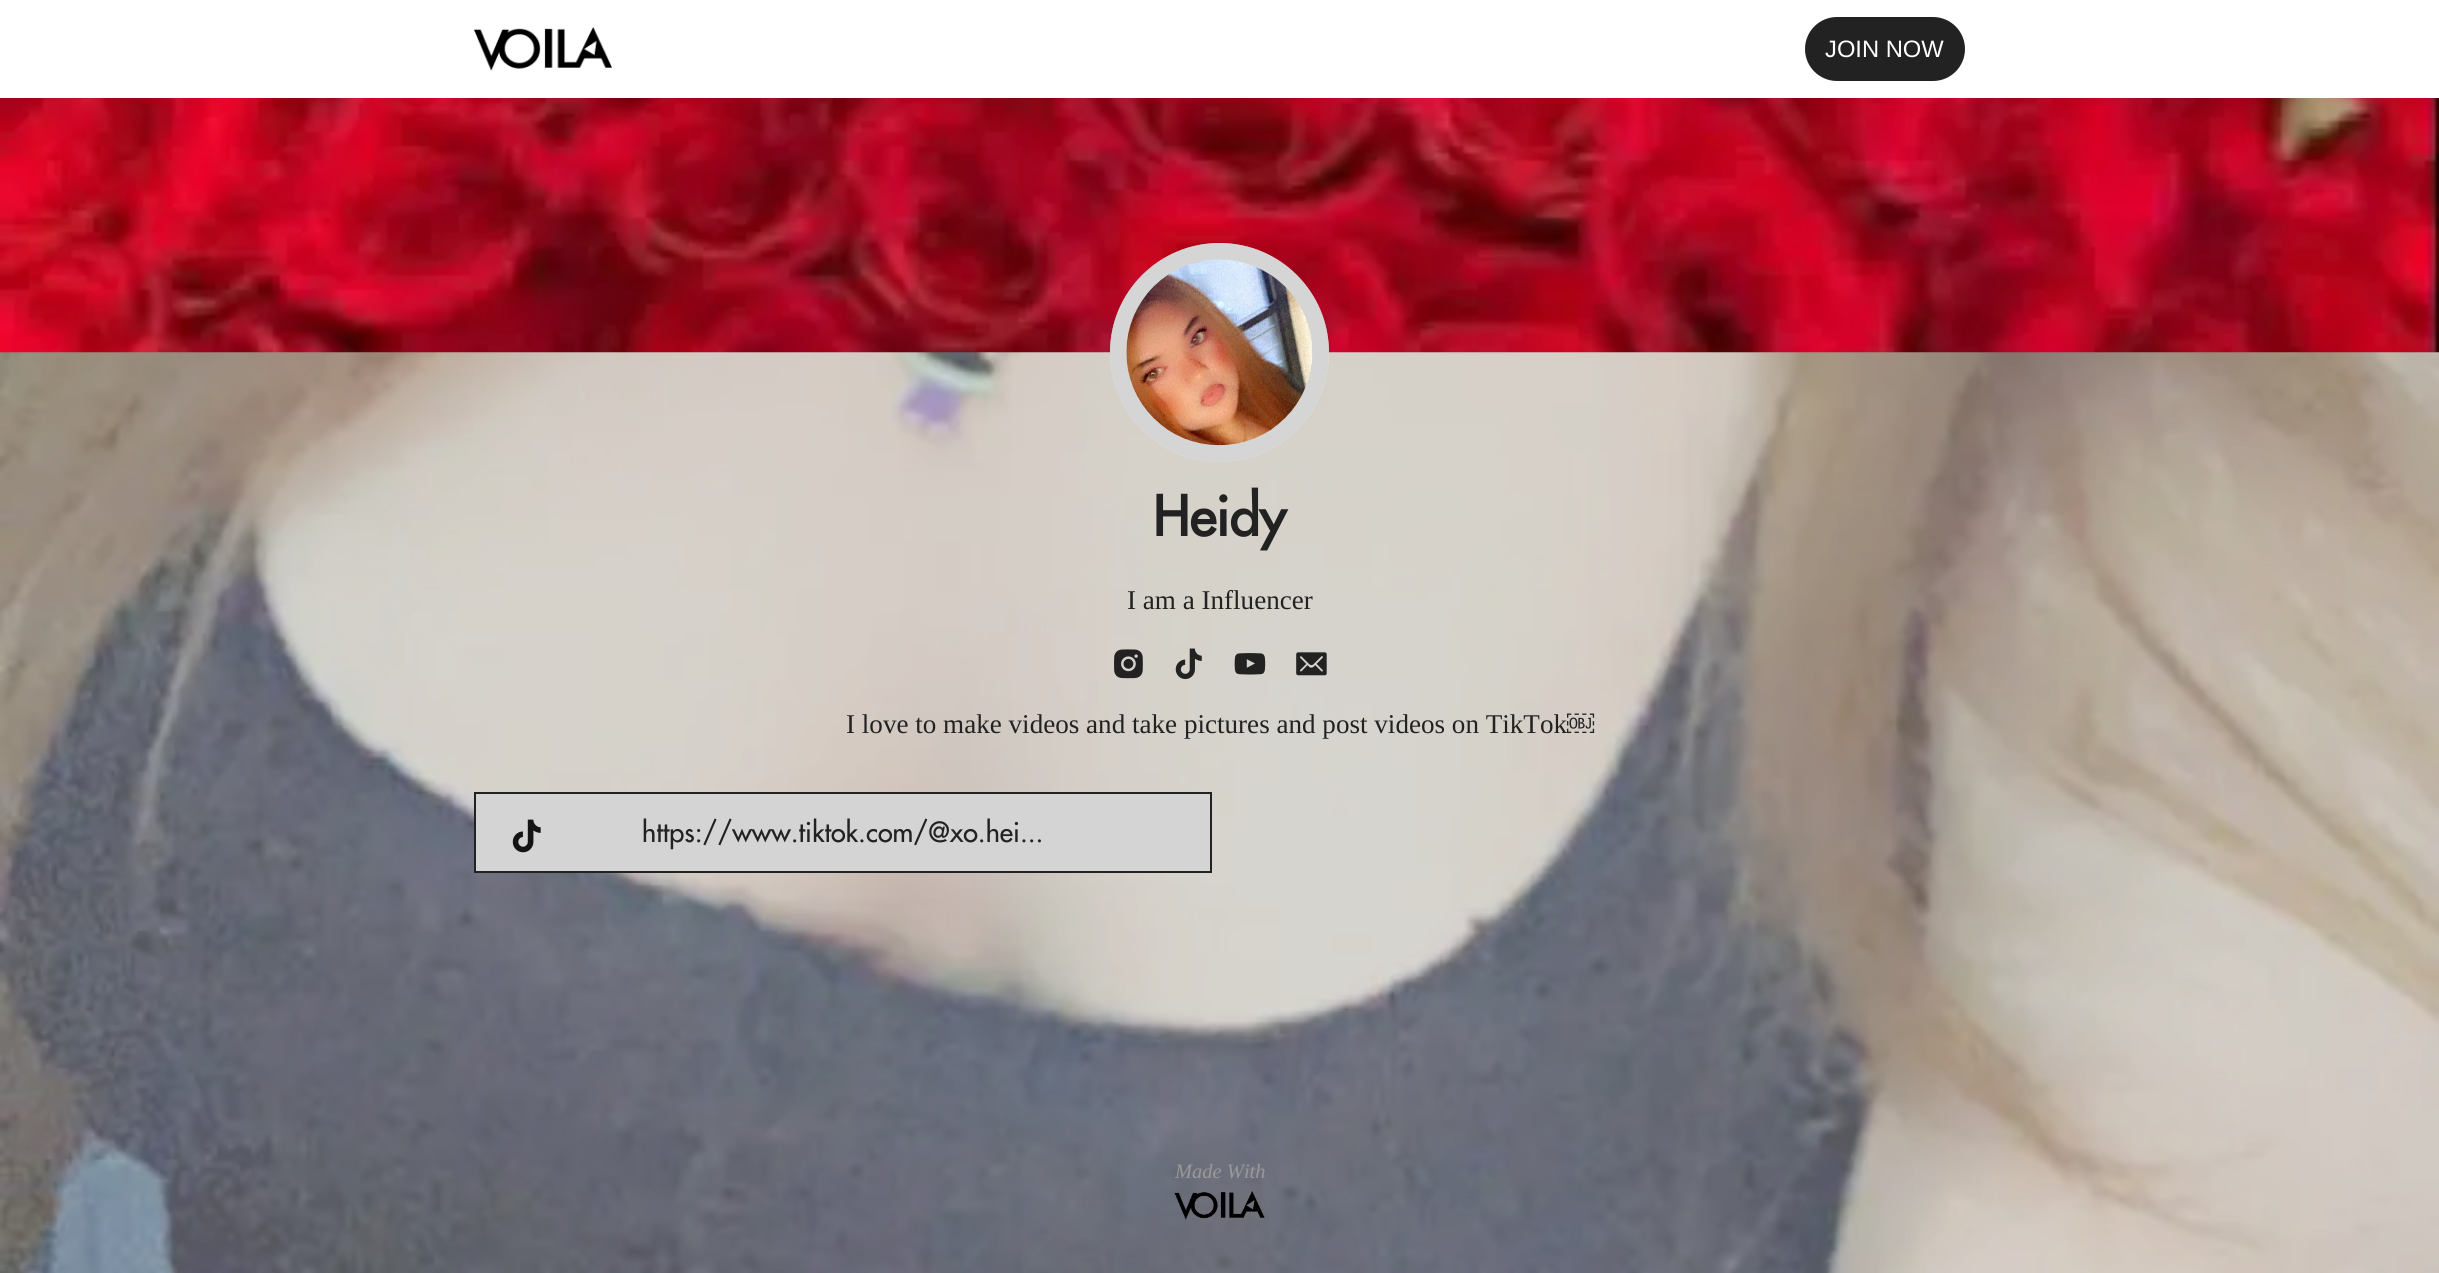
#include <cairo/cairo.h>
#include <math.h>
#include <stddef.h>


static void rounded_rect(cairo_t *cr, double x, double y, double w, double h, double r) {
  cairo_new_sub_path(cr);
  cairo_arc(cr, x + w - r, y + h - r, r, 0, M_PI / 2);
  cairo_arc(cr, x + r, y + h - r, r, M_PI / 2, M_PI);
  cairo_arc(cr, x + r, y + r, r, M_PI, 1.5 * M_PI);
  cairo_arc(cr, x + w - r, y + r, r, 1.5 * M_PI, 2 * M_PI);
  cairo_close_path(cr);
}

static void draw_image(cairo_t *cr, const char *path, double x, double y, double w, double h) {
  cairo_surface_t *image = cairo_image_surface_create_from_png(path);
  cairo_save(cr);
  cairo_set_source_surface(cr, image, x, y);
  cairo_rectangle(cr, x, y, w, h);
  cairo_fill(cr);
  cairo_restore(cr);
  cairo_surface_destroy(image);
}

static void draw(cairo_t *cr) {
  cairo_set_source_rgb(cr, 1, 1, 1);
  cairo_paint(cr);
  draw_image(cr, "images/1.png", 474, 27, 138, 44);
  cairo_set_source_rgb(cr, 34 / 255.0, 34 / 255.0, 34 / 255.0);
  rounded_rect(cr, 1805, 17, 160, 64, 32);
  cairo_fill(cr);
  draw_image(cr, "images/2.png", 0, 352, 2439, 921);
  draw_image(cr, "images/3.png", 0, 98, 2439, 255);
  cairo_set_source_rgb(cr, 1, 1, 1);
  cairo_arc(cr, 1219.5, 352.5, 109.5, 0, 2 * M_PI);
  cairo_fill(cr);
  cairo_arc(cr, 1219.5, 352.5, 101, 0, 2 * M_PI);
  cairo_set_source_rgba(cr, 173 / 255.0, 173 / 255.0, 173 / 255.0, 0.5);
  cairo_set_line_width(cr, 17);
  cairo_stroke(cr);
  draw_image(cr, "images/4.png", 1126, 259, 187, 187);
  draw_image(cr, "images/5.png", 1114, 649, 29, 30);
  draw_image(cr, "images/6.png", 1175, 648, 27, 32);
  draw_image(cr, "images/7.png", 1234, 653, 32, 22);
  draw_image(cr, "images/8.png", 1296, 652, 31, 24);
  cairo_set_source_rgb(cr, 212 / 255.0, 212 / 255.0, 212 / 255.0);
  cairo_rectangle(cr, 475, 793, 736, 79);
  cairo_fill_preserve(cr);
  cairo_set_source_rgb(cr, 34 / 255.0, 34 / 255.0, 34 / 255.0);
  cairo_set_line_width(cr, 2);
  cairo_stroke(cr);
  draw_image(cr, "images/9.png", 512, 819, 29, 34);
  draw_image(cr, "images/10.png", 1174, 1191, 91, 29);
  cairo_select_font_face(cr, "Liberation Sans", CAIRO_FONT_SLANT_NORMAL, CAIRO_FONT_WEIGHT_NORMAL);
  cairo_set_font_size(cr, 23.75);
  cairo_set_source_rgb(cr, 1, 1, 1);
  cairo_move_to(cr, 1825, 57);
  cairo_show_text(cr, "JOIN NOW");
  cairo_select_font_face(cr, "Futura", CAIRO_FONT_SLANT_NORMAL, CAIRO_FONT_WEIGHT_BOLD);
  cairo_set_font_size(cr, 54);
  cairo_set_source_rgb(cr, 34 / 255.0, 34 / 255.0, 34 / 255.0);
  cairo_move_to(cr, 1153, 536);
  cairo_show_text(cr, "Heidy");
  cairo_select_font_face(cr, "Liberation Serif", CAIRO_FONT_SLANT_NORMAL, CAIRO_FONT_WEIGHT_NORMAL);
  cairo_set_font_size(cr, 27.1);
  cairo_move_to(cr, 1127, 609);
  cairo_show_text(cr, "I am a Influencer");
  cairo_move_to(cr, 846, 733);
  cairo_show_text(cr, "I love to make videos and take pictures and post videos on TikTok￼");
  cairo_select_font_face(cr, "Futura Medium", CAIRO_FONT_SLANT_NORMAL, CAIRO_FONT_WEIGHT_NORMAL);
  cairo_move_to(cr, 642, 842);
  cairo_show_text(cr, "https://www.tiktok.com/@xo.hei...");
  cairo_select_font_face(cr, "Liberation Serif", CAIRO_FONT_SLANT_ITALIC, CAIRO_FONT_WEIGHT_NORMAL);
  cairo_set_font_size(cr, 20.5);
  cairo_set_source_rgb(cr, 153 / 255.0, 153 / 255.0, 153 / 255.0);
  cairo_move_to(cr, 1175, 1178);
  cairo_show_text(cr, "Made With");
}

int main(void) {
  cairo_surface_t *surface = cairo_image_surface_create(CAIRO_FORMAT_RGB24, 2439, 1273);
  cairo_t *cr = cairo_create(surface);
  cairo_font_options_t *options = cairo_font_options_create();
  cairo_font_options_set_hint_metrics(options, CAIRO_HINT_METRICS_OFF);
  cairo_font_options_set_hint_style(options, CAIRO_HINT_STYLE_NONE);
  cairo_set_font_options(cr, options);
  cairo_set_miter_limit(cr, 4);
  draw(cr);
  cairo_surface_write_to_png(surface, "out.png");
  cairo_font_options_destroy(options);
  cairo_destroy(cr);
  cairo_surface_destroy(surface);
  return 0;
}
